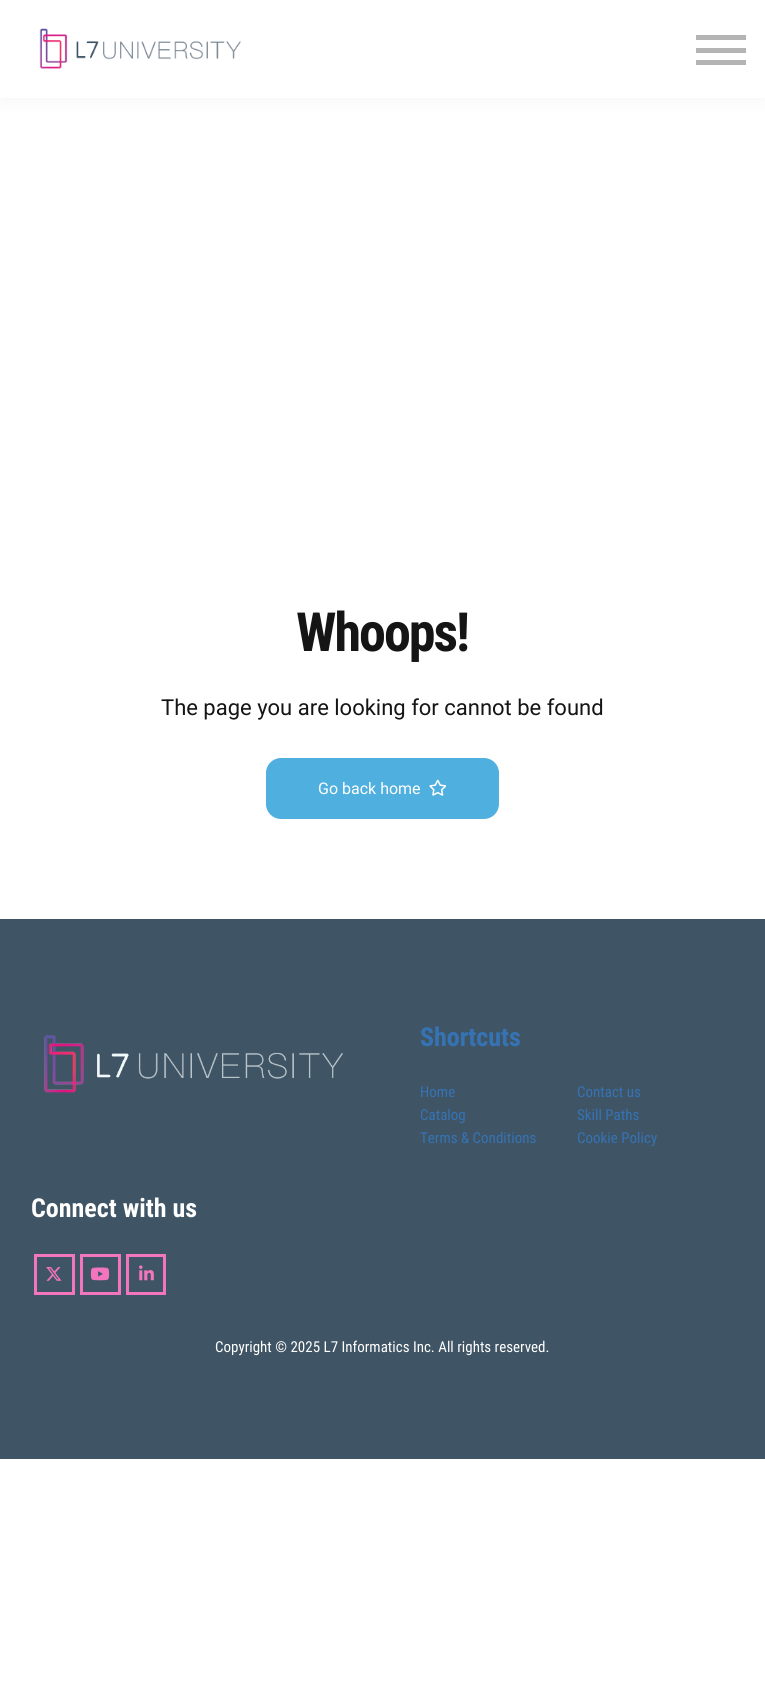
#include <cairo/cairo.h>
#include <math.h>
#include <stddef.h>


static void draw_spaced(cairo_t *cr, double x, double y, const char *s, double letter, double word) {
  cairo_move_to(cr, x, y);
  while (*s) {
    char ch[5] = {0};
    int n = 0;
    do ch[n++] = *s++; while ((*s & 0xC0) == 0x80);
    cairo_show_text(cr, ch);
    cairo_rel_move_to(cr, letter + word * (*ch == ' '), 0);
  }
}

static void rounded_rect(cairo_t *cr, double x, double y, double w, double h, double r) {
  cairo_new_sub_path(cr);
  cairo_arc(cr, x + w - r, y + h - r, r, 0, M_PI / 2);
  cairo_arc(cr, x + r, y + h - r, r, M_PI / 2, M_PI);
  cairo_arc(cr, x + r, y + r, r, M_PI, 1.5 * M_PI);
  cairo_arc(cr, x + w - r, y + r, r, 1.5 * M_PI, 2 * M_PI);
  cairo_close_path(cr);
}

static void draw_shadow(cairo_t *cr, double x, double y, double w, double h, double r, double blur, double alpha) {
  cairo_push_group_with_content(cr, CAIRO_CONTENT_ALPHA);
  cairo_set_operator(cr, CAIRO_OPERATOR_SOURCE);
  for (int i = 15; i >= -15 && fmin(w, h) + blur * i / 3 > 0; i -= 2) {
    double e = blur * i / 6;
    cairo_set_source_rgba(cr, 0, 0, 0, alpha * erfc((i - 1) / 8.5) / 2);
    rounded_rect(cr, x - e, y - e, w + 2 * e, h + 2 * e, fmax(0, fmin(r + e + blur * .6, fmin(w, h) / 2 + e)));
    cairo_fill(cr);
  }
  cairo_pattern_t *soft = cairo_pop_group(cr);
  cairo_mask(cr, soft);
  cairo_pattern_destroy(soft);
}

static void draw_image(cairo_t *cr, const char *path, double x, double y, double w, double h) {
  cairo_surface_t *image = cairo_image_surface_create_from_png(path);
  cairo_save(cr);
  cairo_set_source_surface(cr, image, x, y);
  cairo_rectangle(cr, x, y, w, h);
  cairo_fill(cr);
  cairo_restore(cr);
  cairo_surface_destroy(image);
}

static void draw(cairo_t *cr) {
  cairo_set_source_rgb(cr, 1, 1, 1);
  cairo_paint(cr);
  cairo_set_source_rgb(cr, 0, 0, 0);
  draw_shadow(cr, 0, 0, 765, 98, 0, 9.5, 0.05);
  cairo_set_source_rgb(cr, 1, 1, 1);
  cairo_rectangle(cr, 0, 0, 765, 98);
  cairo_fill(cr);
  draw_image(cr, "images/1.png", 39, 28, 202, 41);
  cairo_set_source_rgb(cr, 180 / 255.0, 180 / 255.0, 180 / 255.0);
  cairo_rectangle(cr, 696, 60, 50, 5);
  cairo_fill(cr);
  cairo_rectangle(cr, 696, 35, 50, 5);
  cairo_fill(cr);
  cairo_rectangle(cr, 696, 48, 50, 5);
  cairo_fill(cr);
  cairo_set_source_rgb(cr, 79 / 255.0, 175 / 255.0, 222 / 255.0);
  rounded_rect(cr, 266, 758, 233, 61, 15);
  cairo_fill(cr);
  draw_image(cr, "images/2.png", 429, 779, 18, 17);
  cairo_set_source_rgb(cr, 63 / 255.0, 84 / 255.0, 100 / 255.0);
  cairo_rectangle(cr, 0, 919, 765, 540);
  cairo_fill(cr);
  draw_image(cr, "images/3.png", 44, 1035, 299, 58);
  cairo_rectangle(cr, 35.5, 1255.5, 38, 38);
  cairo_set_source_rgb(cr, 243 / 255.0, 117 / 255.0, 189 / 255.0);
  cairo_set_line_width(cr, 3);
  cairo_stroke(cr);
  draw_image(cr, "images/4.png", 46, 1267, 16, 14);
  cairo_rectangle(cr, 81.5, 1255.5, 38, 38);
  cairo_stroke(cr);
  draw_image(cr, "images/5.png", 90, 1267, 20, 14);
  cairo_rectangle(cr, 127.5, 1255.5, 37, 38);
  cairo_stroke(cr);
  draw_image(cr, "images/6.png", 139, 1265, 15, 16);
  cairo_select_font_face(cr, "Roboto Condensed", CAIRO_FONT_SLANT_NORMAL, CAIRO_FONT_WEIGHT_BOLD);
  cairo_set_font_size(cr, 54);
  cairo_set_source_rgb(cr, 21 / 255.0, 21 / 255.0, 21 / 255.0);
  draw_spaced(cr, 296, 651, "Whoops!", -2, 0);
  cairo_select_font_face(cr, "Roboto", CAIRO_FONT_SLANT_NORMAL, CAIRO_FONT_WEIGHT_NORMAL);
  cairo_set_font_size(cr, 22);
  cairo_move_to(cr, 161, 715);
  cairo_show_text(cr, "The page you are looking for cannot be found");
  cairo_set_font_size(cr, 16);
  cairo_set_source_rgb(cr, 1, 1, 1);
  cairo_move_to(cr, 318, 794);
  cairo_show_text(cr, "Go back home");
  cairo_select_font_face(cr, "Roboto Condensed", CAIRO_FONT_SLANT_NORMAL, CAIRO_FONT_WEIGHT_BOLD);
  cairo_set_font_size(cr, 26);
  cairo_set_source_rgb(cr, 53 / 255.0, 115 / 255.0, 181 / 255.0);
  cairo_move_to(cr, 420, 1046);
  cairo_show_text(cr, "Shortcuts");
  cairo_select_font_face(cr, "Roboto Condensed", CAIRO_FONT_SLANT_NORMAL, CAIRO_FONT_WEIGHT_NORMAL);
  cairo_set_font_size(cr, 15);
  cairo_move_to(cr, 420, 1097);
  cairo_show_text(cr, "Home");
  cairo_move_to(cr, 577, 1097);
  cairo_show_text(cr, "Contact us");
  cairo_move_to(cr, 420, 1120);
  cairo_show_text(cr, "Catalog");
  cairo_move_to(cr, 577, 1120);
  cairo_show_text(cr, "Skill Paths");
  cairo_move_to(cr, 420, 1143);
  cairo_show_text(cr, "Terms & Conditions");
  cairo_move_to(cr, 577, 1143);
  cairo_show_text(cr, "Cookie Policy");
  cairo_select_font_face(cr, "Roboto Condensed", CAIRO_FONT_SLANT_NORMAL, CAIRO_FONT_WEIGHT_BOLD);
  cairo_set_font_size(cr, 26);
  cairo_set_source_rgb(cr, 1, 1, 1);
  cairo_move_to(cr, 31, 1217);
  cairo_show_text(cr, "Connect with us");
  cairo_select_font_face(cr, "Roboto Condensed", CAIRO_FONT_SLANT_NORMAL, CAIRO_FONT_WEIGHT_NORMAL);
  cairo_set_font_size(cr, 15);
  cairo_move_to(cr, 215, 1352);
  cairo_show_text(cr, "Copyright © 2025 L7 Informatics Inc. All rights reserved.");
}

int main(void) {
  cairo_surface_t *surface = cairo_image_surface_create(CAIRO_FORMAT_RGB24, 765, 1682);
  cairo_t *cr = cairo_create(surface);
  cairo_font_options_t *options = cairo_font_options_create();
  cairo_font_options_set_hint_metrics(options, CAIRO_HINT_METRICS_OFF);
  cairo_font_options_set_hint_style(options, CAIRO_HINT_STYLE_NONE);
  cairo_set_font_options(cr, options);
  cairo_set_miter_limit(cr, 4);
  draw(cr);
  cairo_surface_write_to_png(surface, "out.png");
  cairo_font_options_destroy(options);
  cairo_destroy(cr);
  cairo_surface_destroy(surface);
  return 0;
}
